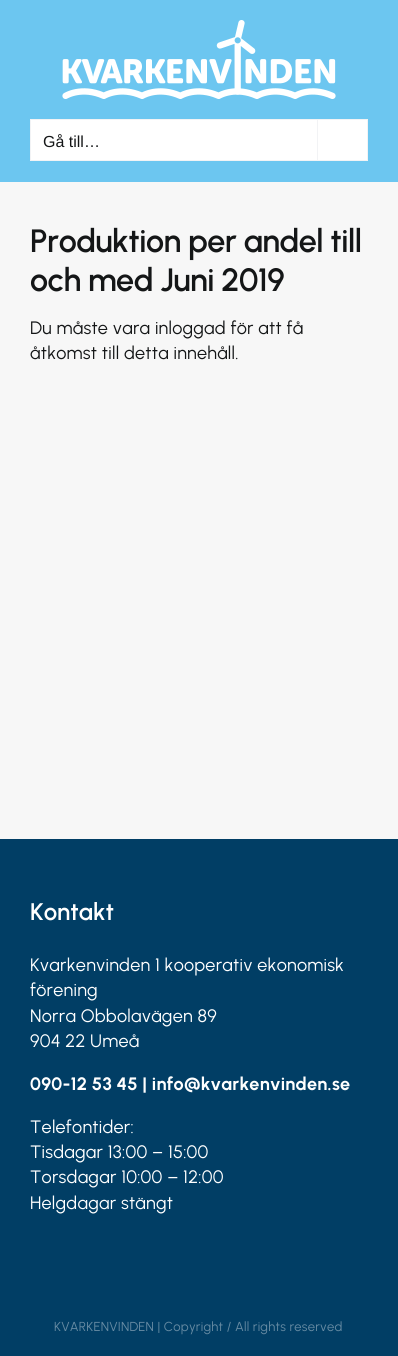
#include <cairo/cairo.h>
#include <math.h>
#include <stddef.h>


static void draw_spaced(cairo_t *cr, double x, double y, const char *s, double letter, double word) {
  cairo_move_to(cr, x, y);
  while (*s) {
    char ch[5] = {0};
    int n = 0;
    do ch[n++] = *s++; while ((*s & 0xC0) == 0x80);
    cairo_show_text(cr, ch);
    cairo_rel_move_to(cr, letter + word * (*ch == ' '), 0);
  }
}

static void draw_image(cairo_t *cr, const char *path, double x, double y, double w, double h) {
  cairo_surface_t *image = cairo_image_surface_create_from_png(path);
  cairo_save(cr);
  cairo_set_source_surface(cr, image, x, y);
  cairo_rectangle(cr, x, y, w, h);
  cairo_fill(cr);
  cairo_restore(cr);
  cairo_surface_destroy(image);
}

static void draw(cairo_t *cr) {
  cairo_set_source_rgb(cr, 247 / 255.0, 247 / 255.0, 247 / 255.0);
  cairo_paint(cr);
  cairo_set_source_rgb(cr, 108 / 255.0, 198 / 255.0, 240 / 255.0);
  cairo_rectangle(cr, 0, 0, 398, 182);
  cairo_fill(cr);
  draw_image(cr, "images/1.png", 62, 20, 274, 79);
  cairo_set_source_rgb(cr, 1, 1, 1);
  cairo_rectangle(cr, 30.5, 119.5, 337, 41);
  cairo_fill_preserve(cr);
  cairo_set_source_rgb(cr, 242 / 255.0, 243 / 255.0, 245 / 255.0);
  cairo_set_line_width(cr, 1);
  cairo_stroke(cr);
  cairo_rectangle(cr, 317, 120, 1, 40);
  cairo_fill(cr);
  cairo_set_source_rgb(cr, 1 / 255.0, 62 / 255.0, 101 / 255.0);
  cairo_rectangle(cr, 0, 839, 398, 517);
  cairo_fill(cr);
  cairo_select_font_face(cr, "Liberation Sans", CAIRO_FONT_SLANT_NORMAL, CAIRO_FONT_WEIGHT_NORMAL);
  cairo_set_font_size(cr, 16);
  cairo_set_source_rgb(cr, 20 / 255.0, 22 / 255.0, 23 / 255.0);
  cairo_move_to(cr, 43, 147);
  cairo_show_text(cr, "Gå till…");
  cairo_select_font_face(cr, "Urbanist SemiBold", CAIRO_FONT_SLANT_NORMAL, CAIRO_FONT_WEIGHT_NORMAL);
  cairo_set_font_size(cr, 32.25);
  draw_spaced(cr, 30, 252, "Produktion per andel till", -0.5, 0);
  draw_spaced(cr, 30, 291, "och med Juni 2019", -0.5, 0);
  cairo_select_font_face(cr, "Urbanist", CAIRO_FONT_SLANT_NORMAL, CAIRO_FONT_WEIGHT_NORMAL);
  cairo_set_font_size(cr, 18);
  draw_spaced(cr, 30, 334, "Du måste vara inloggad för att få", 0.25, 0);
  draw_spaced(cr, 30, 359, "åtkomst till detta innehåll.", 0.25, 0);
  cairo_select_font_face(cr, "Urbanist SemiBold", CAIRO_FONT_SLANT_NORMAL, CAIRO_FONT_WEIGHT_NORMAL);
  cairo_set_font_size(cr, 24);
  cairo_set_source_rgb(cr, 1, 1, 1);
  cairo_move_to(cr, 30, 920);
  cairo_show_text(cr, "Kontakt");
  cairo_select_font_face(cr, "Urbanist", CAIRO_FONT_SLANT_NORMAL, CAIRO_FONT_WEIGHT_NORMAL);
  cairo_set_font_size(cr, 18);
  draw_spaced(cr, 30, 971, "Kvarkenvinden 1 kooperativ ekonomisk", 0.25, 0);
  draw_spaced(cr, 30, 996, "förening", 0.25, 0);
  draw_spaced(cr, 30, 1022, "Norra Obbolavägen 89", 0.25, 0);
  draw_spaced(cr, 30, 1047, "904 22 Umeå", 0.25, 0);
  cairo_select_font_face(cr, "Urbanist", CAIRO_FONT_SLANT_NORMAL, CAIRO_FONT_WEIGHT_BOLD);
  draw_spaced(cr, 30, 1090, "090-12 53 45 | info@kvarkenvinden.se", 0.25, 0);
  cairo_select_font_face(cr, "Urbanist", CAIRO_FONT_SLANT_NORMAL, CAIRO_FONT_WEIGHT_NORMAL);
  draw_spaced(cr, 30, 1133, "Telefontider:", 0.25, 0);
  draw_spaced(cr, 30, 1158, "Tisdagar 13:00 – 15:00", 0.25, 0);
  draw_spaced(cr, 30, 1183, "Torsdagar 10:00 – 12:00", 0.25, 0);
  draw_spaced(cr, 30, 1209, "Helgdagar stängt", 0.25, 0);
  cairo_set_font_size(cr, 13);
  cairo_set_source_rgb(cr, 103 / 255.0, 139 / 255.0, 163 / 255.0);
  draw_spaced(cr, 54, 1331, "KVARKENVINDEN | Copyright / All rights reserved", 0.25, 0);
}

int main(void) {
  cairo_surface_t *surface = cairo_image_surface_create(CAIRO_FORMAT_RGB24, 398, 1356);
  cairo_t *cr = cairo_create(surface);
  cairo_font_options_t *options = cairo_font_options_create();
  cairo_font_options_set_hint_metrics(options, CAIRO_HINT_METRICS_OFF);
  cairo_font_options_set_hint_style(options, CAIRO_HINT_STYLE_NONE);
  cairo_set_font_options(cr, options);
  cairo_set_miter_limit(cr, 4);
  draw(cr);
  cairo_surface_write_to_png(surface, "out.png");
  cairo_font_options_destroy(options);
  cairo_destroy(cr);
  cairo_surface_destroy(surface);
  return 0;
}
